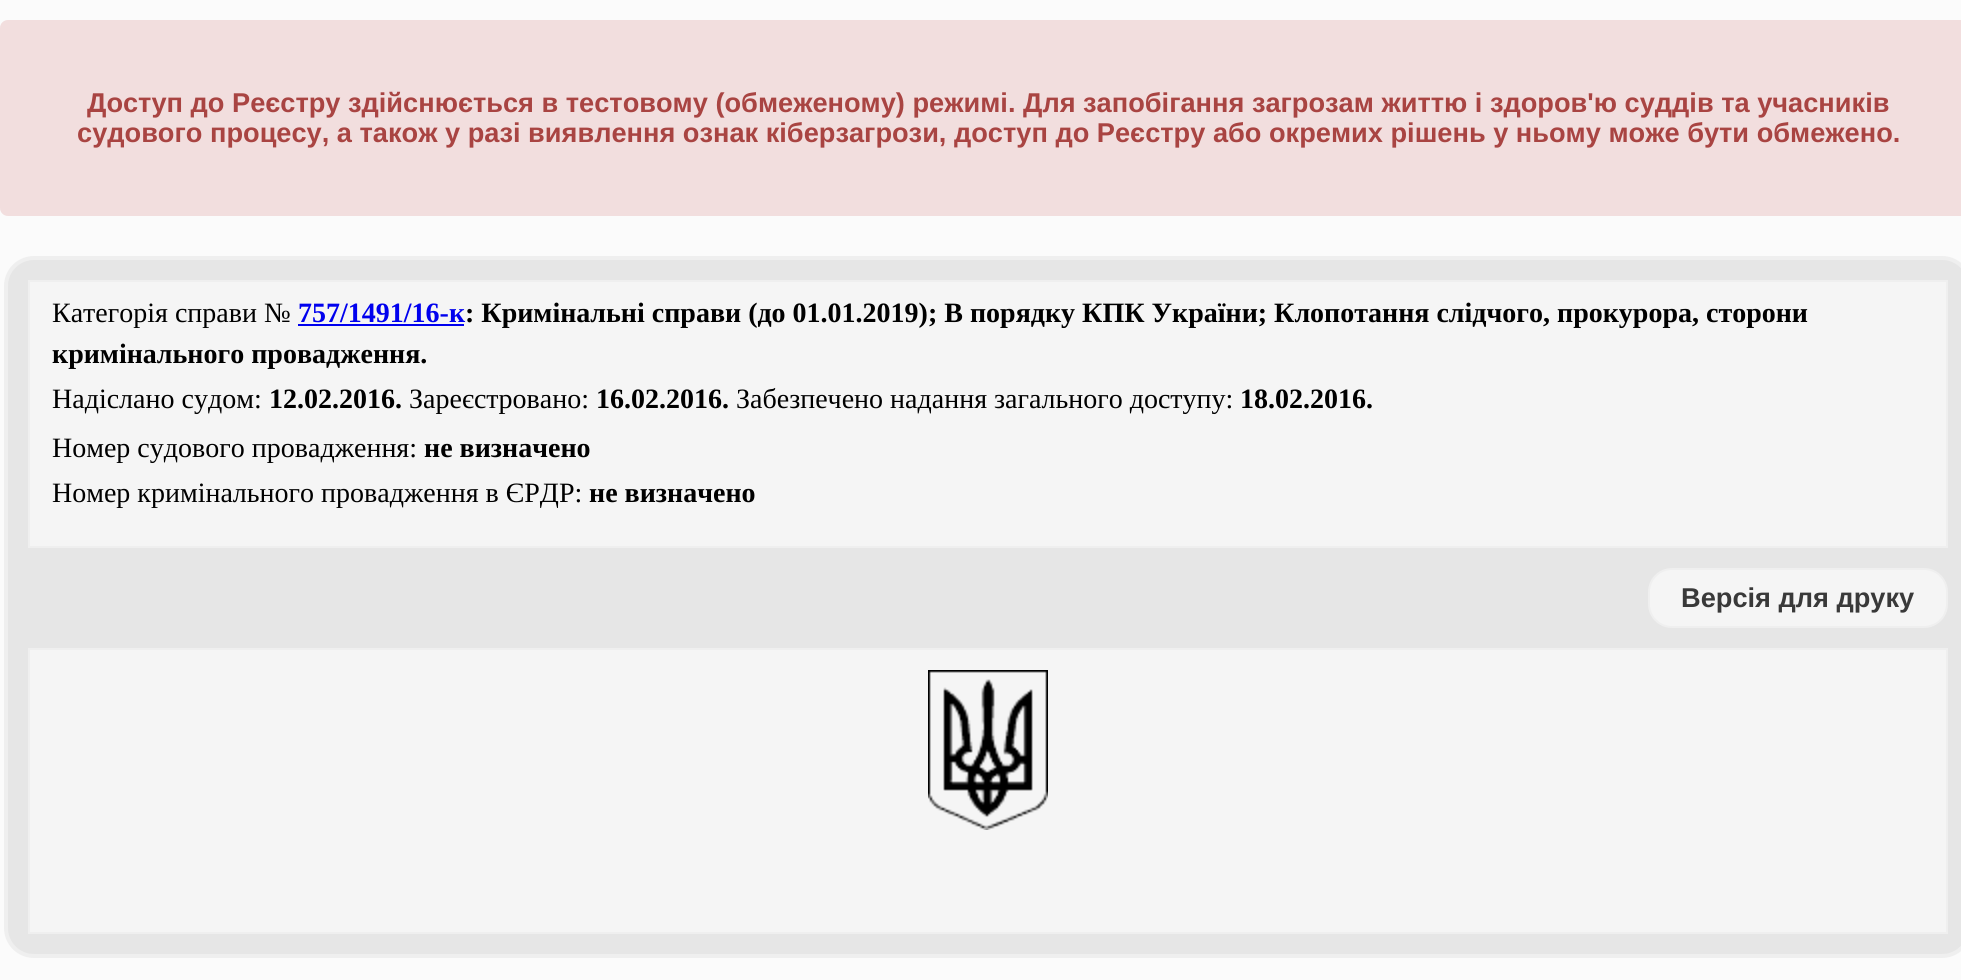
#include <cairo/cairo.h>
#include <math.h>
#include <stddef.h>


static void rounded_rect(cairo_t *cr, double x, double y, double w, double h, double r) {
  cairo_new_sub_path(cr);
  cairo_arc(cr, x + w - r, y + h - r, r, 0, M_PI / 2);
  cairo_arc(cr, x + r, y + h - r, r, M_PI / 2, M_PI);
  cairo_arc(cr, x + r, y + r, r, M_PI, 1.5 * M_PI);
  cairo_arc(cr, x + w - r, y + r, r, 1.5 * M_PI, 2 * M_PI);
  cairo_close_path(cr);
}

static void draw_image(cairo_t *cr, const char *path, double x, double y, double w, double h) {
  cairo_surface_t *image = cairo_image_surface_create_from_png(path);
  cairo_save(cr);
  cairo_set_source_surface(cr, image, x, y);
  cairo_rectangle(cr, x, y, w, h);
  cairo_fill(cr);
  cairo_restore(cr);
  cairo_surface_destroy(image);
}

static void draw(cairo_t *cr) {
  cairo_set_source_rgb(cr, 251 / 255.0, 251 / 255.0, 251 / 255.0);
  cairo_paint(cr);
  cairo_set_source_rgb(cr, 242 / 255.0, 222 / 255.0, 222 / 255.0);
  rounded_rect(cr, 0, 20, 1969, 196, 8);
  cairo_fill(cr);
  cairo_set_source_rgb(cr, 230 / 255.0, 230 / 255.0, 230 / 255.0);
  rounded_rect(cr, 6, 258, 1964, 698, 28);
  cairo_fill_preserve(cr);
  cairo_set_source_rgb(cr, 239 / 255.0, 239 / 255.0, 239 / 255.0);
  cairo_set_line_width(cr, 4);
  cairo_stroke(cr);
  cairo_set_source_rgb(cr, 245 / 255.0, 245 / 255.0, 245 / 255.0);
  cairo_rectangle(cr, 29, 281, 1918, 266);
  cairo_fill_preserve(cr);
  cairo_set_source_rgb(cr, 239 / 255.0, 239 / 255.0, 239 / 255.0);
  cairo_set_line_width(cr, 2);
  cairo_stroke(cr);
  cairo_set_source_rgb(cr, 0, 0, 238 / 255.0);
  cairo_rectangle(cr, 298, 324, 166, 2);
  cairo_fill(cr);
  cairo_set_source_rgb(cr, 245 / 255.0, 245 / 255.0, 245 / 255.0);
  rounded_rect(cr, 1649, 569, 298, 58, 23);
  cairo_fill_preserve(cr);
  cairo_set_source_rgb(cr, 239 / 255.0, 239 / 255.0, 239 / 255.0);
  cairo_stroke(cr);
  cairo_set_source_rgb(cr, 245 / 255.0, 245 / 255.0, 245 / 255.0);
  cairo_rectangle(cr, 29, 649, 1918, 284);
  cairo_fill_preserve(cr);
  cairo_set_source_rgb(cr, 239 / 255.0, 239 / 255.0, 239 / 255.0);
  cairo_stroke(cr);
  draw_image(cr, "images/1.png", 928, 670, 120, 160);
  cairo_select_font_face(cr, "Liberation Sans", CAIRO_FONT_SLANT_NORMAL, CAIRO_FONT_WEIGHT_BOLD);
  cairo_set_font_size(cr, 27.2);
  cairo_set_source_rgb(cr, 169 / 255.0, 68 / 255.0, 66 / 255.0);
  cairo_move_to(cr, 87, 112);
  cairo_show_text(cr, "Доступ до Реєстру здійснюється в тестовому (обмеженому) режимі. Для запобігання загрозам життю і здоров'ю суддів та учасників");
  cairo_move_to(cr, 77, 142);
  cairo_show_text(cr, "судового процесу, а також у разі виявлення ознак кіберзагрози, доступ до Реєстру або окремих рішень у ньому може бути обмежено.");
  cairo_select_font_face(cr, "Liberation Serif", CAIRO_FONT_SLANT_NORMAL, CAIRO_FONT_WEIGHT_NORMAL);
  cairo_set_font_size(cr, 28);
  cairo_set_source_rgb(cr, 0, 0, 0);
  cairo_move_to(cr, 52, 322);
  cairo_show_text(cr, "Категорія справи №");
  cairo_select_font_face(cr, "Liberation Serif", CAIRO_FONT_SLANT_NORMAL, CAIRO_FONT_WEIGHT_BOLD);
  cairo_set_source_rgb(cr, 0, 0, 238 / 255.0);
  cairo_move_to(cr, 298, 322);
  cairo_show_text(cr, "757/1491/16-к");
  cairo_set_source_rgb(cr, 0, 0, 0);
  cairo_move_to(cr, 465, 322);
  cairo_show_text(cr, ": Кримінальні справи (до 01.01.2019); В порядку КПК України; Клопотання слідчого, прокурора, сторони");
  cairo_move_to(cr, 52, 363);
  cairo_show_text(cr, "кримінального провадження.");
  cairo_select_font_face(cr, "Liberation Serif", CAIRO_FONT_SLANT_NORMAL, CAIRO_FONT_WEIGHT_NORMAL);
  cairo_move_to(cr, 52, 408);
  cairo_show_text(cr, "Надіслано судом:");
  cairo_select_font_face(cr, "Liberation Serif", CAIRO_FONT_SLANT_NORMAL, CAIRO_FONT_WEIGHT_BOLD);
  cairo_move_to(cr, 269, 408);
  cairo_show_text(cr, "12.02.2016.");
  cairo_select_font_face(cr, "Liberation Serif", CAIRO_FONT_SLANT_NORMAL, CAIRO_FONT_WEIGHT_NORMAL);
  cairo_move_to(cr, 409, 408);
  cairo_show_text(cr, "Зареєстровано:");
  cairo_select_font_face(cr, "Liberation Serif", CAIRO_FONT_SLANT_NORMAL, CAIRO_FONT_WEIGHT_BOLD);
  cairo_move_to(cr, 596, 408);
  cairo_show_text(cr, "16.02.2016.");
  cairo_select_font_face(cr, "Liberation Serif", CAIRO_FONT_SLANT_NORMAL, CAIRO_FONT_WEIGHT_NORMAL);
  cairo_move_to(cr, 736, 408);
  cairo_show_text(cr, "Забезпечено надання загального доступу:");
  cairo_select_font_face(cr, "Liberation Serif", CAIRO_FONT_SLANT_NORMAL, CAIRO_FONT_WEIGHT_BOLD);
  cairo_move_to(cr, 1240, 408);
  cairo_show_text(cr, "18.02.2016.");
  cairo_select_font_face(cr, "Liberation Serif", CAIRO_FONT_SLANT_NORMAL, CAIRO_FONT_WEIGHT_NORMAL);
  cairo_move_to(cr, 52, 457);
  cairo_show_text(cr, "Номер судового провадження:");
  cairo_select_font_face(cr, "Liberation Serif", CAIRO_FONT_SLANT_NORMAL, CAIRO_FONT_WEIGHT_BOLD);
  cairo_move_to(cr, 424, 457);
  cairo_show_text(cr, "не визначено");
  cairo_select_font_face(cr, "Liberation Serif", CAIRO_FONT_SLANT_NORMAL, CAIRO_FONT_WEIGHT_NORMAL);
  cairo_move_to(cr, 52, 502);
  cairo_show_text(cr, "Номер кримінального провадження в ЄРДР:");
  cairo_select_font_face(cr, "Liberation Serif", CAIRO_FONT_SLANT_NORMAL, CAIRO_FONT_WEIGHT_BOLD);
  cairo_move_to(cr, 589, 502);
  cairo_show_text(cr, "не визначено");
  cairo_select_font_face(cr, "Liberation Sans", CAIRO_FONT_SLANT_NORMAL, CAIRO_FONT_WEIGHT_BOLD);
  cairo_set_font_size(cr, 27.2);
  cairo_set_source_rgb(cr, 57 / 255.0, 57 / 255.0, 57 / 255.0);
  cairo_move_to(cr, 1681, 607);
  cairo_show_text(cr, "Версія для друку");
}

int main(void) {
  cairo_surface_t *surface = cairo_image_surface_create(CAIRO_FORMAT_RGB24, 1961, 980);
  cairo_t *cr = cairo_create(surface);
  cairo_font_options_t *options = cairo_font_options_create();
  cairo_font_options_set_hint_metrics(options, CAIRO_HINT_METRICS_OFF);
  cairo_font_options_set_hint_style(options, CAIRO_HINT_STYLE_NONE);
  cairo_set_font_options(cr, options);
  cairo_set_miter_limit(cr, 4);
  draw(cr);
  cairo_surface_write_to_png(surface, "out.png");
  cairo_font_options_destroy(options);
  cairo_destroy(cr);
  cairo_surface_destroy(surface);
  return 0;
}
